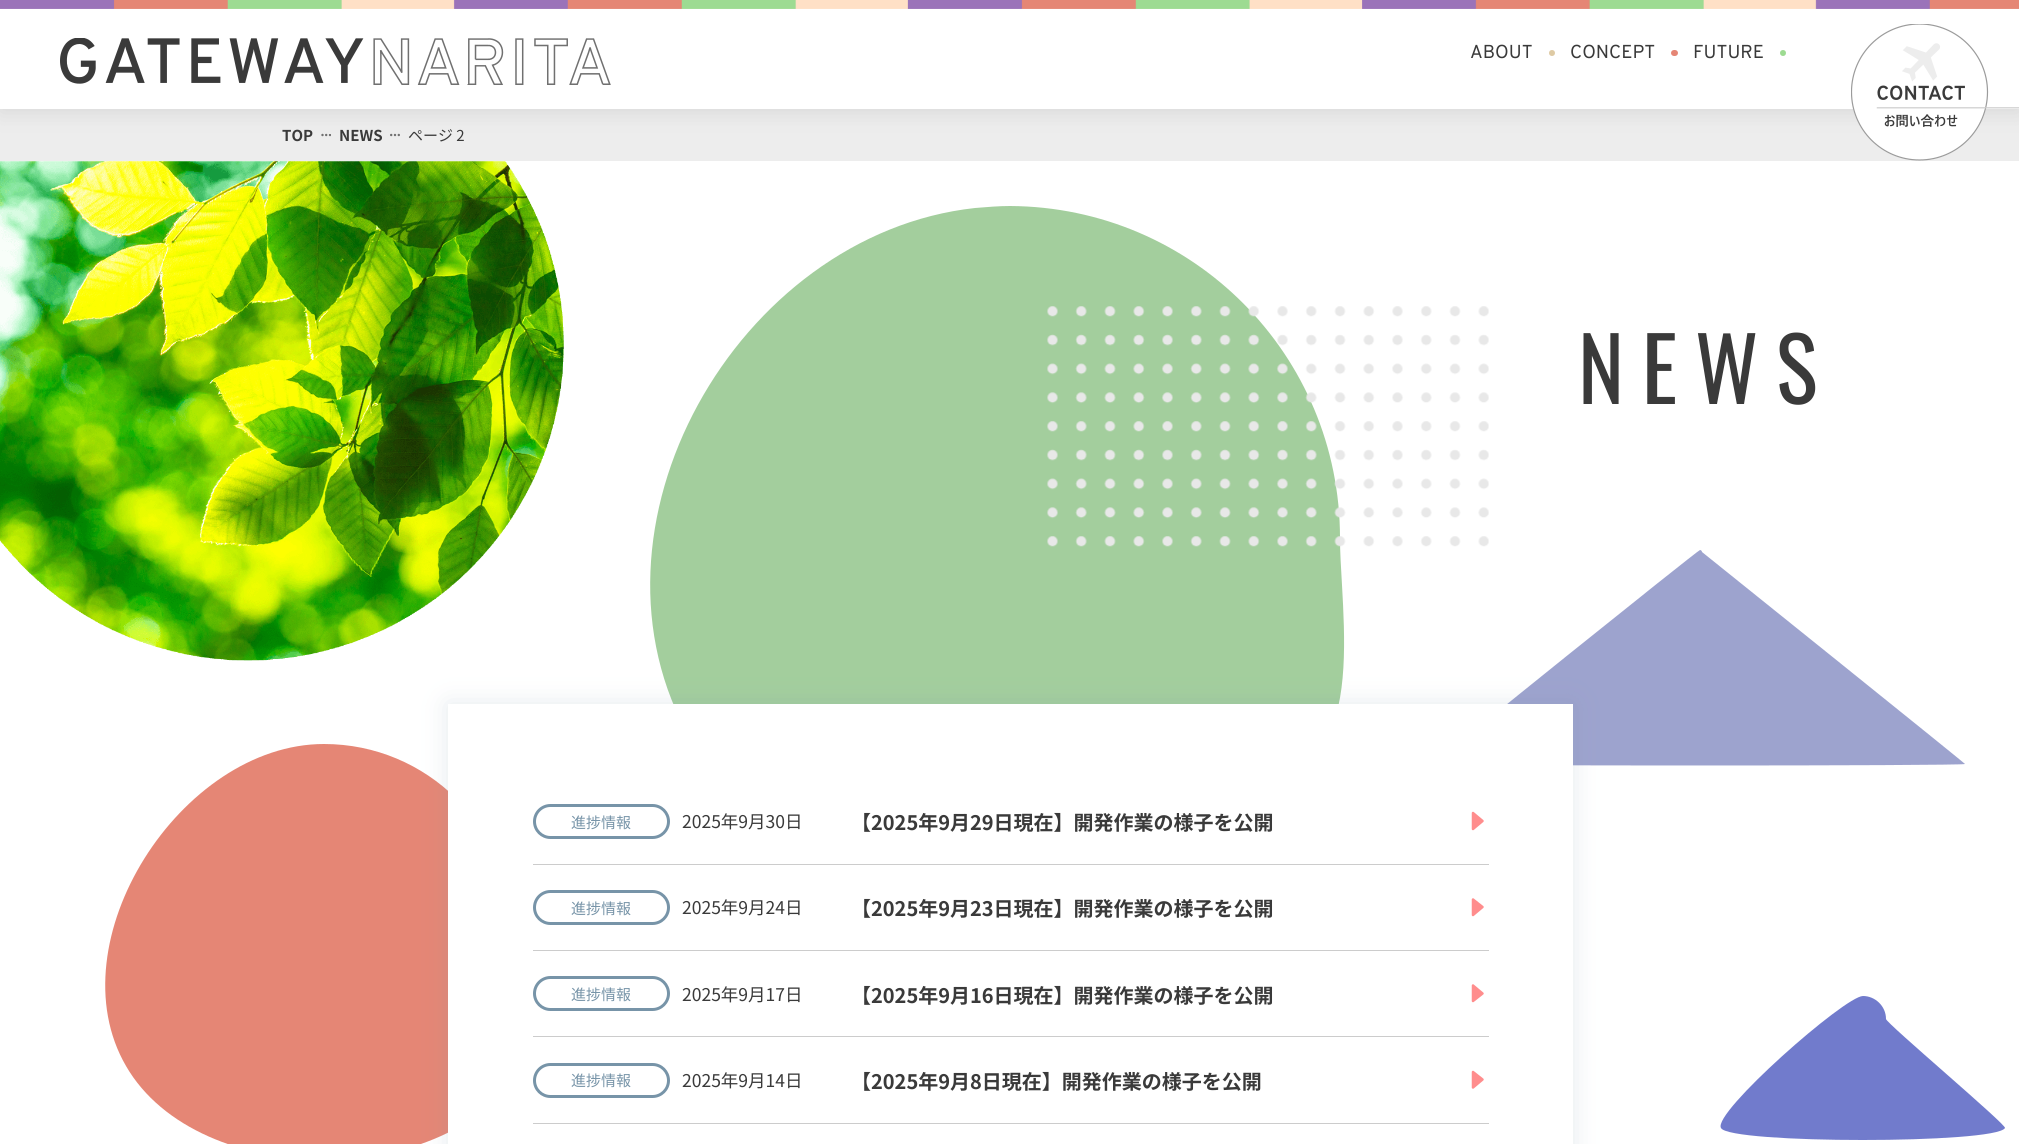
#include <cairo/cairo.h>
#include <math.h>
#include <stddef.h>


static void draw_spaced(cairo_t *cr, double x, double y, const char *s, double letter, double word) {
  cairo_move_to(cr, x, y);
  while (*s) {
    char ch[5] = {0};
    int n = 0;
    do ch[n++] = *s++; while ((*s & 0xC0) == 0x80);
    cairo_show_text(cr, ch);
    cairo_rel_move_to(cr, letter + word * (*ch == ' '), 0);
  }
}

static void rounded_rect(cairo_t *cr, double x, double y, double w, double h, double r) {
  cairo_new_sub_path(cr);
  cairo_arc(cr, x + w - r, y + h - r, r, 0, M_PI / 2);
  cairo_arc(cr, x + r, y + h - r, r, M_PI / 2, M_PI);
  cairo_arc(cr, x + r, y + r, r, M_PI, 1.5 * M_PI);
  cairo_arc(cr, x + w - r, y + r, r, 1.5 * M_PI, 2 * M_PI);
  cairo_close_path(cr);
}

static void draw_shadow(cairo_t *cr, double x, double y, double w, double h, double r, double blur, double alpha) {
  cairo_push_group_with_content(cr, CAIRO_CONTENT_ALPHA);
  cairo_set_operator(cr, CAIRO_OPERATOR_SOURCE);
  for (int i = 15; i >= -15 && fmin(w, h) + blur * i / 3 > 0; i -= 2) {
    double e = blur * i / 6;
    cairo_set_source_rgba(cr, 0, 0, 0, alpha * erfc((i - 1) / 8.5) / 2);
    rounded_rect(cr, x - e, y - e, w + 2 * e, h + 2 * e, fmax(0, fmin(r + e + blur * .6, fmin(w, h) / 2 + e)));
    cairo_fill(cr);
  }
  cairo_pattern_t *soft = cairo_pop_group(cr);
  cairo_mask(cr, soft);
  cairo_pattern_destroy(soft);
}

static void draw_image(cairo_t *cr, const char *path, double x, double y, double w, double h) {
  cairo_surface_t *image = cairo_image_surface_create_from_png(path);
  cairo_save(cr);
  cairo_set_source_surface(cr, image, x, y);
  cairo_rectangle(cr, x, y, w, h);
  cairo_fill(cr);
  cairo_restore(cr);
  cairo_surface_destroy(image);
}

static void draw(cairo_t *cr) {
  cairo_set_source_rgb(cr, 1, 1, 1);
  cairo_paint(cr);
  cairo_set_source_rgb(cr, 237 / 255.0, 237 / 255.0, 237 / 255.0);
  cairo_rectangle(cr, 0, 109, 2019, 52);
  cairo_fill(cr);
  cairo_set_source_rgb(cr, 112 / 255.0, 112 / 255.0, 112 / 255.0);
  cairo_arc(cr, 322.5, 135, 1.2, 0, 2 * M_PI);
  cairo_fill(cr);
  cairo_arc(cr, 326.2, 135, 1.2, 0, 2 * M_PI);
  cairo_fill(cr);
  cairo_save(cr);
  cairo_rectangle(cr, 321, 134, 10, 3);
  cairo_clip(cr);
  cairo_arc(cr, 330, 135, 1.2, 0, 2 * M_PI);
  cairo_fill(cr);
  cairo_restore(cr);
  cairo_arc(cr, 391.2, 135, 1.2, 0, 2 * M_PI);
  cairo_fill(cr);
  cairo_arc(cr, 395, 135, 1.2, 0, 2 * M_PI);
  cairo_fill(cr);
  cairo_arc(cr, 398.8, 135, 1.2, 0, 2 * M_PI);
  cairo_fill(cr);
  cairo_set_source_rgb(cr, 70 / 255.0, 70 / 255.0, 70 / 255.0);
  draw_shadow(cr, 0, 4, 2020, 109, 0, 11, 0.12);
  cairo_set_source_rgb(cr, 1, 1, 1);
  cairo_rectangle(cr, 0, 8, 2019, 101);
  cairo_fill(cr);
  draw_image(cr, "images/1.png", 0, 0, 2019, 9);
  draw_image(cr, "images/2.png", 60, 38, 551, 47);
  cairo_set_source_rgb(cr, 222 / 255.0, 202 / 255.0, 164 / 255.0);
  cairo_arc(cr, 1552, 53, 3, 0, 2 * M_PI);
  cairo_fill(cr);
  cairo_set_source_rgb(cr, 229 / 255.0, 134 / 255.0, 117 / 255.0);
  rounded_rect(cr, 1671, 50, 7, 6, 3);
  cairo_fill(cr);
  cairo_set_source_rgb(cr, 157 / 255.0, 219 / 255.0, 146 / 255.0);
  cairo_arc(cr, 1783, 53, 3, 0, 2 * M_PI);
  cairo_fill(cr);
  draw_image(cr, "images/3.png", 1851, 24, 168, 137);
  draw_image(cr, "images/4.png", 0, 161, 564, 500);
  cairo_set_source_rgb(cr, 163 / 255.0, 206 / 255.0, 157 / 255.0);
  cairo_new_path(cr);
  cairo_move_to(cr, 975, 208);
  cairo_curve_to(cr, 987, 207, 999, 206, 1010, 206);
  cairo_curve_to(cr, 1193, 207, 1340, 355, 1340, 538);
  cairo_curve_to(cr, 1340, 552, 1341, 568, 1342, 585);
  cairo_curve_to(cr, 1345, 638, 1348, 701, 1326, 740);
  cairo_curve_to(cr, 1199, 960, 818, 960, 691, 740);
  cairo_curve_to(cr, 569, 529, 737, 234, 975, 208);
  cairo_close_path(cr);
  cairo_fill(cr);
  cairo_set_source_rgb(cr, 157 / 255.0, 163 / 255.0, 206 / 255.0);
  cairo_new_path(cr);
  cairo_move_to(cr, 1700, 550);
  cairo_curve_to(cr, 1698, 550, 1433, 763, 1434, 764);
  cairo_curve_to(cr, 1435, 766, 1965, 766, 1965, 764);
  cairo_curve_to(cr, 1966, 764, 1702, 552, 1702, 552);
  cairo_curve_to(cr, 1702, 551, 1701, 550, 1700, 550);
  cairo_fill(cr);
  cairo_set_source_rgb(cr, 229 / 255.0, 134 / 255.0, 117 / 255.0);
  cairo_new_path(cr);
  cairo_move_to(cr, 324, 744);
  cairo_curve_to(cr, 181, 744, 54, 942, 126, 1066);
  cairo_curve_to(cr, 198, 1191, 451, 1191, 522, 1066);
  cairo_curve_to(cr, 539, 1038, 511, 963, 511, 930);
  cairo_curve_to(cr, 511, 827, 427, 744, 324, 744);
  cairo_fill(cr);
  cairo_set_source_rgb(cr, 119 / 255.0, 148 / 255.0, 168 / 255.0);
  draw_shadow(cr, 448, 704, 1125, 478, 0, 12.5, 0.2);
  cairo_set_source_rgb(cr, 1, 1, 1);
  cairo_rectangle(cr, 448, 704, 1125, 440);
  cairo_fill(cr);
  rounded_rect(cr, 534.5, 805.5, 134, 32, 16);
  cairo_set_source_rgb(cr, 119 / 255.0, 148 / 255.0, 168 / 255.0);
  cairo_set_line_width(cr, 3);
  cairo_stroke(cr);
  cairo_set_source_rgb(cr, 1, 141 / 255.0, 141 / 255.0);
  cairo_new_path(cr);
  cairo_move_to(cr, 1482.5, 821);
  cairo_line_to(cr, 1473, 829);
  cairo_line_to(cr, 1473, 813);
  cairo_close_path(cr);
  cairo_fill_preserve(cr);
  cairo_set_line_width(cr, 2.5);
  cairo_set_line_cap(cr, CAIRO_LINE_CAP_ROUND);
  cairo_set_line_join(cr, CAIRO_LINE_JOIN_ROUND);
  cairo_stroke(cr);
  cairo_set_source_rgb(cr, 204 / 255.0, 204 / 255.0, 204 / 255.0);
  cairo_rectangle(cr, 533, 864, 956, 1);
  cairo_fill(cr);
  rounded_rect(cr, 534.5, 891.5, 134, 32, 16);
  cairo_set_source_rgb(cr, 119 / 255.0, 148 / 255.0, 168 / 255.0);
  cairo_set_line_width(cr, 3);
  cairo_set_line_cap(cr, CAIRO_LINE_CAP_BUTT);
  cairo_set_line_join(cr, CAIRO_LINE_JOIN_MITER);
  cairo_stroke(cr);
  cairo_set_source_rgb(cr, 1, 141 / 255.0, 141 / 255.0);
  cairo_new_path(cr);
  cairo_move_to(cr, 1482.5, 907);
  cairo_line_to(cr, 1473, 915);
  cairo_line_to(cr, 1473, 899.5);
  cairo_close_path(cr);
  cairo_fill_preserve(cr);
  cairo_set_line_width(cr, 2.5);
  cairo_set_line_cap(cr, CAIRO_LINE_CAP_ROUND);
  cairo_set_line_join(cr, CAIRO_LINE_JOIN_ROUND);
  cairo_stroke(cr);
  cairo_set_source_rgb(cr, 204 / 255.0, 204 / 255.0, 204 / 255.0);
  cairo_rectangle(cr, 533, 950, 956, 1);
  cairo_fill(cr);
  rounded_rect(cr, 534.5, 977.5, 134, 32, 16);
  cairo_set_source_rgb(cr, 119 / 255.0, 148 / 255.0, 168 / 255.0);
  cairo_set_line_width(cr, 3);
  cairo_set_line_cap(cr, CAIRO_LINE_CAP_BUTT);
  cairo_set_line_join(cr, CAIRO_LINE_JOIN_MITER);
  cairo_stroke(cr);
  cairo_set_source_rgb(cr, 1, 141 / 255.0, 141 / 255.0);
  cairo_new_path(cr);
  cairo_move_to(cr, 1482.5, 993.5);
  cairo_line_to(cr, 1473, 1001);
  cairo_line_to(cr, 1473, 985.5);
  cairo_close_path(cr);
  cairo_fill_preserve(cr);
  cairo_set_line_width(cr, 2.5);
  cairo_set_line_cap(cr, CAIRO_LINE_CAP_ROUND);
  cairo_set_line_join(cr, CAIRO_LINE_JOIN_ROUND);
  cairo_stroke(cr);
  cairo_set_source_rgb(cr, 204 / 255.0, 204 / 255.0, 204 / 255.0);
  cairo_rectangle(cr, 533, 1036, 956, 1);
  cairo_fill(cr);
  rounded_rect(cr, 534.5, 1064.5, 134, 32, 16);
  cairo_set_source_rgb(cr, 119 / 255.0, 148 / 255.0, 168 / 255.0);
  cairo_set_line_width(cr, 3);
  cairo_set_line_cap(cr, CAIRO_LINE_CAP_BUTT);
  cairo_set_line_join(cr, CAIRO_LINE_JOIN_MITER);
  cairo_stroke(cr);
  cairo_set_source_rgb(cr, 1, 141 / 255.0, 141 / 255.0);
  cairo_new_path(cr);
  cairo_move_to(cr, 1482.5, 1079.5);
  cairo_line_to(cr, 1473, 1087.5);
  cairo_line_to(cr, 1473, 1072);
  cairo_close_path(cr);
  cairo_fill_preserve(cr);
  cairo_set_line_width(cr, 2.5);
  cairo_set_line_cap(cr, CAIRO_LINE_CAP_ROUND);
  cairo_set_line_join(cr, CAIRO_LINE_JOIN_ROUND);
  cairo_stroke(cr);
  cairo_set_source_rgb(cr, 204 / 255.0, 204 / 255.0, 204 / 255.0);
  cairo_rectangle(cr, 533, 1123, 956, 1);
  cairo_fill(cr);
  draw_image(cr, "images/5.png", 1047, 306, 442, 241);
  cairo_set_source_rgb(cr, 113 / 255.0, 123 / 255.0, 204 / 255.0);
  cairo_new_path(cr);
  cairo_move_to(cr, 1863, 996);
  cairo_curve_to(cr, 1845, 996, 1712, 1113, 1721, 1128);
  cairo_curve_to(cr, 1729, 1144, 1996, 1144, 2005, 1128);
  cairo_curve_to(cr, 2007, 1125, 1886, 1023, 1886, 1019);
  cairo_curve_to(cr, 1886, 1006, 1875, 996, 1863, 996);
  cairo_fill(cr);
  cairo_select_font_face(cr, "Overpass", CAIRO_FONT_SLANT_NORMAL, CAIRO_FONT_WEIGHT_NORMAL);
  cairo_set_font_size(cr, 18.75);
  cairo_set_source_rgb(cr, 58 / 255.0, 58 / 255.0, 58 / 255.0);
  cairo_move_to(cr, 1470, 58);
  cairo_show_text(cr, "ABOUT");
  cairo_move_to(cr, 1570, 58);
  cairo_show_text(cr, "CONCEPT");
  cairo_move_to(cr, 1693, 58);
  cairo_show_text(cr, "FUTURE");
  cairo_select_font_face(cr, "Noto Sans JP", CAIRO_FONT_SLANT_NORMAL, CAIRO_FONT_WEIGHT_BOLD);
  cairo_set_font_size(cr, 15);
  cairo_move_to(cr, 282, 141);
  cairo_show_text(cr, "TOP");
  cairo_move_to(cr, 339, 141);
  cairo_show_text(cr, "NEWS");
  cairo_select_font_face(cr, "Noto Sans JP", CAIRO_FONT_SLANT_NORMAL, CAIRO_FONT_WEIGHT_NORMAL);
  cairo_move_to(cr, 408, 141);
  cairo_show_text(cr, "ページ 2");
  cairo_select_font_face(cr, "Oswald", CAIRO_FONT_SLANT_NORMAL, CAIRO_FONT_WEIGHT_NORMAL);
  cairo_set_font_size(cr, 87.5);
  draw_spaced(cr, 1578, 404, "NEWS", 17.5, 0);
  cairo_select_font_face(cr, "Noto Sans JP", CAIRO_FONT_SLANT_NORMAL, CAIRO_FONT_WEIGHT_NORMAL);
  cairo_set_font_size(cr, 15);
  cairo_set_source_rgb(cr, 119 / 255.0, 148 / 255.0, 168 / 255.0);
  cairo_move_to(cr, 571, 828);
  cairo_show_text(cr, "進捗情報");
  cairo_set_font_size(cr, 17.5);
  cairo_set_source_rgb(cr, 58 / 255.0, 58 / 255.0, 58 / 255.0);
  cairo_move_to(cr, 682, 828);
  cairo_show_text(cr, "2025年9月30日");
  cairo_select_font_face(cr, "Noto Sans JP", CAIRO_FONT_SLANT_NORMAL, CAIRO_FONT_WEIGHT_BOLD);
  cairo_set_font_size(cr, 20);
  cairo_move_to(cr, 851, 830);
  cairo_show_text(cr, "【2025年9月29日現在】開発作業の様子を公開");
  cairo_select_font_face(cr, "Noto Sans JP", CAIRO_FONT_SLANT_NORMAL, CAIRO_FONT_WEIGHT_NORMAL);
  cairo_set_font_size(cr, 15);
  cairo_set_source_rgb(cr, 119 / 255.0, 148 / 255.0, 168 / 255.0);
  cairo_move_to(cr, 571, 914);
  cairo_show_text(cr, "進捗情報");
  cairo_set_font_size(cr, 17.5);
  cairo_set_source_rgb(cr, 58 / 255.0, 58 / 255.0, 58 / 255.0);
  cairo_move_to(cr, 682, 914);
  cairo_show_text(cr, "2025年9月24日");
  cairo_select_font_face(cr, "Noto Sans JP", CAIRO_FONT_SLANT_NORMAL, CAIRO_FONT_WEIGHT_BOLD);
  cairo_set_font_size(cr, 20);
  cairo_move_to(cr, 851, 916);
  cairo_show_text(cr, "【2025年9月23日現在】開発作業の様子を公開");
  cairo_select_font_face(cr, "Noto Sans JP", CAIRO_FONT_SLANT_NORMAL, CAIRO_FONT_WEIGHT_NORMAL);
  cairo_set_font_size(cr, 15);
  cairo_set_source_rgb(cr, 119 / 255.0, 148 / 255.0, 168 / 255.0);
  cairo_move_to(cr, 571, 1000);
  cairo_show_text(cr, "進捗情報");
  cairo_set_font_size(cr, 17.5);
  cairo_set_source_rgb(cr, 58 / 255.0, 58 / 255.0, 58 / 255.0);
  cairo_move_to(cr, 682, 1001);
  cairo_show_text(cr, "2025年9月17日");
  cairo_select_font_face(cr, "Noto Sans JP", CAIRO_FONT_SLANT_NORMAL, CAIRO_FONT_WEIGHT_BOLD);
  cairo_set_font_size(cr, 20);
  cairo_move_to(cr, 851, 1003);
  cairo_show_text(cr, "【2025年9月16日現在】開発作業の様子を公開");
  cairo_select_font_face(cr, "Noto Sans JP", CAIRO_FONT_SLANT_NORMAL, CAIRO_FONT_WEIGHT_NORMAL);
  cairo_set_font_size(cr, 15);
  cairo_set_source_rgb(cr, 119 / 255.0, 148 / 255.0, 168 / 255.0);
  cairo_move_to(cr, 571, 1086);
  cairo_show_text(cr, "進捗情報");
  cairo_set_font_size(cr, 17.5);
  cairo_set_source_rgb(cr, 58 / 255.0, 58 / 255.0, 58 / 255.0);
  cairo_move_to(cr, 682, 1087);
  cairo_show_text(cr, "2025年9月14日");
  cairo_select_font_face(cr, "Noto Sans JP", CAIRO_FONT_SLANT_NORMAL, CAIRO_FONT_WEIGHT_BOLD);
  cairo_set_font_size(cr, 20);
  cairo_move_to(cr, 851, 1089);
  cairo_show_text(cr, "【2025年9月8日現在】開発作業の様子を公開");
}

int main(void) {
  cairo_surface_t *surface = cairo_image_surface_create(CAIRO_FORMAT_RGB24, 2019, 1144);
  cairo_t *cr = cairo_create(surface);
  cairo_font_options_t *options = cairo_font_options_create();
  cairo_font_options_set_hint_metrics(options, CAIRO_HINT_METRICS_OFF);
  cairo_font_options_set_hint_style(options, CAIRO_HINT_STYLE_NONE);
  cairo_set_font_options(cr, options);
  cairo_set_miter_limit(cr, 4);
  draw(cr);
  cairo_surface_write_to_png(surface, "out.png");
  cairo_font_options_destroy(options);
  cairo_destroy(cr);
  cairo_surface_destroy(surface);
  return 0;
}
